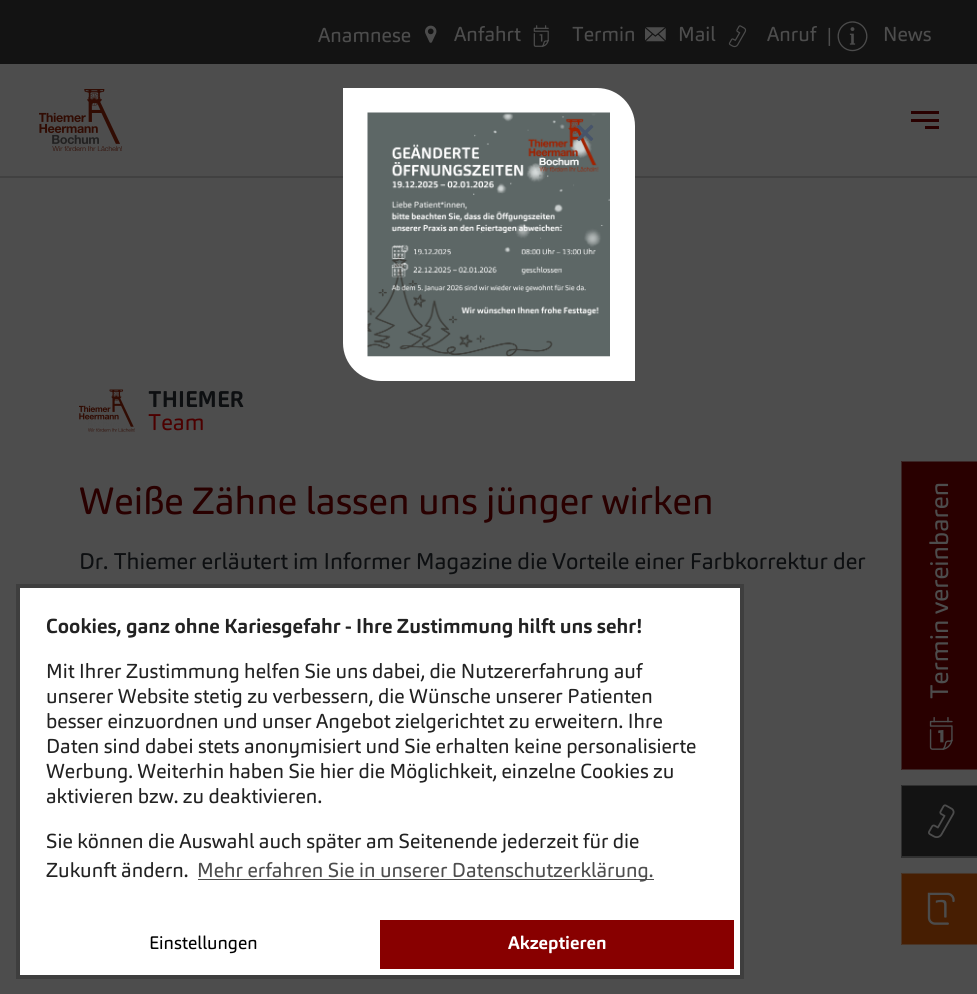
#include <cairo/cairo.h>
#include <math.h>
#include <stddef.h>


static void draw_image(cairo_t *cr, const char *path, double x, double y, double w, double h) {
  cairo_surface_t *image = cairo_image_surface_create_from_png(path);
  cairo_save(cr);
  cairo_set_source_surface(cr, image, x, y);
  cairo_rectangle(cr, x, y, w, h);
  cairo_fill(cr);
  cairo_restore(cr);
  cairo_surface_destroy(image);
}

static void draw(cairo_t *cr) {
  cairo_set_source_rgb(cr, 77 / 255.0, 77 / 255.0, 77 / 255.0);
  cairo_paint(cr);
  cairo_set_source_rgb(cr, 65 / 255.0, 65 / 255.0, 65 / 255.0);
  cairo_new_path(cr);
  cairo_move_to(cr, 0, 176);
  cairo_line_to(cr, 0, 178);
  cairo_line_to(cr, 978, 178);
  cairo_line_to(cr, 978, 1);
  cairo_line_to(cr, 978, 176);
  cairo_close_path(cr);
  cairo_fill(cr);
  cairo_set_source_rgb(cr, 19 / 255.0, 19 / 255.0, 19 / 255.0);
  cairo_rectangle(cr, 0, 0, 977, 64);
  cairo_fill(cr);
  draw_image(cr, "images/1.png", 425, 25, 12, 18);
  draw_image(cr, "images/2.png", 533, 25, 16, 22);
  draw_image(cr, "images/3.png", 645, 27, 21, 15);
  draw_image(cr, "images/4.png", 728, 25, 19, 23);
  draw_image(cr, "images/5.png", 837, 21, 31, 31);
  cairo_set_source_rgb(cr, 1, 1, 1);
  cairo_new_path(cr);
  cairo_move_to(cr, 343, 88);
  cairo_line_to(cr, 597, 88);
  cairo_curve_to(cr, 618, 88, 635, 105, 635, 126);
  cairo_line_to(cr, 635, 381);
  cairo_line_to(cr, 381, 381);
  cairo_curve_to(cr, 360, 381, 343, 364, 343, 343);
  cairo_close_path(cr);
  cairo_fill(cr);
  draw_image(cr, "images/6.png", 367, 112, 243, 245);
  draw_image(cr, "images/7.png", 39, 89, 83, 62);
  cairo_set_source_rgb(cr, 41 / 255.0, 0, 0);
  cairo_rectangle(cr, 911, 119, 28, 3);
  cairo_fill(cr);
  cairo_rectangle(cr, 911, 111, 28, 3);
  cairo_fill(cr);
  cairo_rectangle(cr, 925, 126, 14, 3);
  cairo_fill(cr);
  draw_image(cr, "images/8.png", 79, 389, 56, 43);
  cairo_rectangle(cr, 901, 461, 76, 309);
  cairo_fill(cr);
  cairo_set_source_rgb(cr, 59 / 255.0, 38 / 255.0, 38 / 255.0);
  cairo_new_path(cr);
  cairo_move_to(cr, 901, 461);
  cairo_line_to(cr, 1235, 461);
  cairo_line_to(cr, 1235, 462);
  cairo_line_to(cr, 902, 462);
  cairo_close_path(cr);
  cairo_fill(cr);
  cairo_new_path(cr);
  cairo_move_to(cr, 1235, 770);
  cairo_line_to(cr, 901, 770);
  cairo_line_to(cr, 902, 769);
  cairo_line_to(cr, 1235, 769);
  cairo_close_path(cr);
  cairo_fill(cr);
  cairo_set_source_rgba(cr, 77 / 255.0, 77 / 255.0, 77 / 255.0, 0.5);
  cairo_new_path(cr);
  cairo_move_to(cr, 901, 770);
  cairo_line_to(cr, 901, 461);
  cairo_line_to(cr, 902, 462);
  cairo_line_to(cr, 902, 769);
  cairo_close_path(cr);
  cairo_fill(cr);
  draw_image(cr, "images/9.png", 929, 717, 24, 33);
  cairo_set_source_rgb(cr, 19 / 255.0, 19 / 255.0, 19 / 255.0);
  cairo_rectangle(cr, 901, 785, 76, 73);
  cairo_fill(cr);
  cairo_set_source_rgb(cr, 48 / 255.0, 48 / 255.0, 48 / 255.0);
  cairo_new_path(cr);
  cairo_move_to(cr, 901, 785);
  cairo_line_to(cr, 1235, 785);
  cairo_line_to(cr, 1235, 786);
  cairo_line_to(cr, 902, 786);
  cairo_close_path(cr);
  cairo_fill(cr);
  cairo_new_path(cr);
  cairo_move_to(cr, 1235, 858);
  cairo_line_to(cr, 901, 858);
  cairo_line_to(cr, 902, 856);
  cairo_line_to(cr, 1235, 856);
  cairo_close_path(cr);
  cairo_fill(cr);
  cairo_set_source_rgba(cr, 77 / 255.0, 77 / 255.0, 77 / 255.0, 0.5);
  cairo_new_path(cr);
  cairo_move_to(cr, 901, 858);
  cairo_line_to(cr, 901, 785);
  cairo_line_to(cr, 902, 786);
  cairo_line_to(cr, 902, 856);
  cairo_close_path(cr);
  cairo_fill(cr);
  draw_image(cr, "images/10.png", 928, 804, 27, 34);
  cairo_set_source_rgb(cr, 71 / 255.0, 30 / 255.0, 2 / 255.0);
  cairo_rectangle(cr, 901, 873, 76, 72);
  cairo_fill(cr);
  cairo_set_source_rgba(cr, 77 / 255.0, 77 / 255.0, 77 / 255.0, 0.5);
  cairo_new_path(cr);
  cairo_move_to(cr, 901, 872);
  cairo_line_to(cr, 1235, 872);
  cairo_line_to(cr, 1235, 874);
  cairo_line_to(cr, 902, 874);
  cairo_close_path(cr);
  cairo_fill(cr);
  cairo_set_source_rgb(cr, 74 / 255.0, 53 / 255.0, 39 / 255.0);
  cairo_new_path(cr);
  cairo_move_to(cr, 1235, 945);
  cairo_line_to(cr, 901, 945);
  cairo_line_to(cr, 902, 944);
  cairo_line_to(cr, 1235, 944);
  cairo_close_path(cr);
  cairo_fill(cr);
  cairo_set_source_rgba(cr, 77 / 255.0, 77 / 255.0, 77 / 255.0, 0.5);
  cairo_new_path(cr);
  cairo_move_to(cr, 901, 945);
  cairo_line_to(cr, 901, 872);
  cairo_line_to(cr, 902, 874);
  cairo_line_to(cr, 902, 944);
  cairo_close_path(cr);
  cairo_fill(cr);
  draw_image(cr, "images/11.png", 927, 892, 28, 33);
  cairo_rectangle(cr, 18, 586, 724, 391);
  cairo_set_source_rgba(cr, 0, 0, 0, 0.2);
  cairo_set_line_width(cr, 4);
  cairo_stroke(cr);
  cairo_set_source_rgb(cr, 1, 1, 1);
  cairo_rectangle(cr, 20, 588, 720, 387);
  cairo_fill(cr);
  cairo_set_source_rgb(cr, 78 / 255.0, 78 / 255.0, 78 / 255.0);
  cairo_rectangle(cr, 198, 879, 456, 1);
  cairo_fill(cr);
  cairo_set_source_rgb(cr, 136 / 255.0, 0, 0);
  cairo_rectangle(cr, 380, 920, 354, 49);
  cairo_fill(cr);
  cairo_select_font_face(cr, "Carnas", CAIRO_FONT_SLANT_NORMAL, CAIRO_FONT_WEIGHT_NORMAL);
  cairo_set_font_size(cr, 20);
  cairo_set_source_rgb(cr, 77 / 255.0, 77 / 255.0, 77 / 255.0);
  cairo_move_to(cr, 318, 42);
  cairo_show_text(cr, "Anamnese");
  cairo_move_to(cr, 454, 41);
  cairo_show_text(cr, "Anfahrt");
  cairo_move_to(cr, 572, 41);
  cairo_show_text(cr, "Termin");
  cairo_move_to(cr, 678, 41);
  cairo_show_text(cr, "Mail");
  cairo_move_to(cr, 767, 41);
  cairo_show_text(cr, "Anruf");
  cairo_move_to(cr, 827, 43);
  cairo_show_text(cr, "|");
  cairo_move_to(cr, 883, 41);
  cairo_show_text(cr, "News");
  cairo_select_font_face(cr, "Carnas", CAIRO_FONT_SLANT_NORMAL, CAIRO_FONT_WEIGHT_BOLD);
  cairo_set_font_size(cr, 37.5);
  cairo_set_source_rgb(cr, 71 / 255.0, 84 / 255.0, 106 / 255.0);
  cairo_move_to(cr, 572, 144);
  cairo_show_text(cr, "×");
  cairo_set_font_size(cr, 22.5);
  cairo_set_source_rgb(cr, 13 / 255.0, 15 / 255.0, 17 / 255.0);
  cairo_move_to(cr, 148, 407);
  cairo_show_text(cr, "THIEMER");
  cairo_select_font_face(cr, "Carnas", CAIRO_FONT_SLANT_NORMAL, CAIRO_FONT_WEIGHT_NORMAL);
  cairo_set_source_rgb(cr, 76 / 255.0, 0, 0);
  cairo_move_to(cr, 148, 430);
  cairo_show_text(cr, "Team");
  cairo_set_font_size(cr, 37.5);
  cairo_set_source_rgb(cr, 41 / 255.0, 0, 0);
  cairo_move_to(cr, 79, 514);
  cairo_show_text(cr, "Weiße Zähne lassen uns jünger wirken");
  cairo_set_font_size(cr, 22.5);
  cairo_set_source_rgb(cr, 13 / 255.0, 15 / 255.0, 17 / 255.0);
  cairo_move_to(cr, 79, 569);
  cairo_show_text(cr, "Dr. Thiemer erläutert im Informer Magazine die Vorteile einer Farbkorrektur der");
  cairo_set_font_size(cr, 25);
  cairo_set_source_rgb(cr, 77 / 255.0, 77 / 255.0, 77 / 255.0);
  cairo_save(cr);
  cairo_translate(cr, 948, 699);
  cairo_rotate(cr, -90 * M_PI / 180);
  cairo_move_to(cr, 0, 0);
  cairo_show_text(cr, "Termin vereinbaren");
  cairo_restore(cr);
  cairo_select_font_face(cr, "Carnas", CAIRO_FONT_SLANT_NORMAL, CAIRO_FONT_WEIGHT_BOLD);
  cairo_set_font_size(cr, 20);
  cairo_set_source_rgb(cr, 34 / 255.0, 34 / 255.0, 34 / 255.0);
  cairo_move_to(cr, 46, 633);
  cairo_show_text(cr, "Cookies, ganz ohne Kariesgefahr - Ihre Zustimmung hilft uns sehr!");
  cairo_select_font_face(cr, "Carnas", CAIRO_FONT_SLANT_NORMAL, CAIRO_FONT_WEIGHT_NORMAL);
  cairo_move_to(cr, 46, 678);
  cairo_show_text(cr, "Mit Ihrer Zustimmung helfen Sie uns dabei, die Nutzererfahrung auf");
  cairo_move_to(cr, 46, 703);
  cairo_show_text(cr, "unserer Website stetig zu verbessern, die Wünsche unserer Patienten");
  cairo_move_to(cr, 46, 728);
  cairo_show_text(cr, "besser einzuordnen und unser Angebot zielgerichtet zu erweitern. Ihre");
  cairo_move_to(cr, 46, 753);
  cairo_show_text(cr, "Daten sind dabei stets anonymisiert und Sie erhalten keine personalisierte");
  cairo_move_to(cr, 46, 778);
  cairo_show_text(cr, "Werbung. Weiterhin haben Sie hier die Möglichkeit, einzelne Cookies zu");
  cairo_move_to(cr, 46, 803);
  cairo_show_text(cr, "aktivieren bzw. zu deaktivieren.");
  cairo_move_to(cr, 46, 848);
  cairo_show_text(cr, "Sie können die Auswahl auch später am Seitenende jederzeit für die");
  cairo_move_to(cr, 46, 877);
  cairo_show_text(cr, "Zukunft ändern.");
  cairo_set_source_rgb(cr, 77 / 255.0, 77 / 255.0, 77 / 255.0);
  cairo_move_to(cr, 197, 877);
  cairo_show_text(cr, "Mehr erfahren Sie in unserer Datenschutzerklärung.");
  cairo_set_font_size(cr, 18);
  cairo_set_source_rgb(cr, 0, 0, 0);
  cairo_move_to(cr, 149, 949);
  cairo_show_text(cr, "Einstellungen");
  cairo_select_font_face(cr, "Carnas", CAIRO_FONT_SLANT_NORMAL, CAIRO_FONT_WEIGHT_BOLD);
  cairo_set_source_rgb(cr, 1, 1, 1);
  cairo_move_to(cr, 508, 949);
  cairo_show_text(cr, "Akzeptieren");
}

int main(void) {
  cairo_surface_t *surface = cairo_image_surface_create(CAIRO_FORMAT_RGB24, 977, 994);
  cairo_t *cr = cairo_create(surface);
  cairo_font_options_t *options = cairo_font_options_create();
  cairo_font_options_set_hint_metrics(options, CAIRO_HINT_METRICS_OFF);
  cairo_font_options_set_hint_style(options, CAIRO_HINT_STYLE_NONE);
  cairo_set_font_options(cr, options);
  cairo_set_miter_limit(cr, 4);
  draw(cr);
  cairo_surface_write_to_png(surface, "out.png");
  cairo_font_options_destroy(options);
  cairo_destroy(cr);
  cairo_surface_destroy(surface);
  return 0;
}
